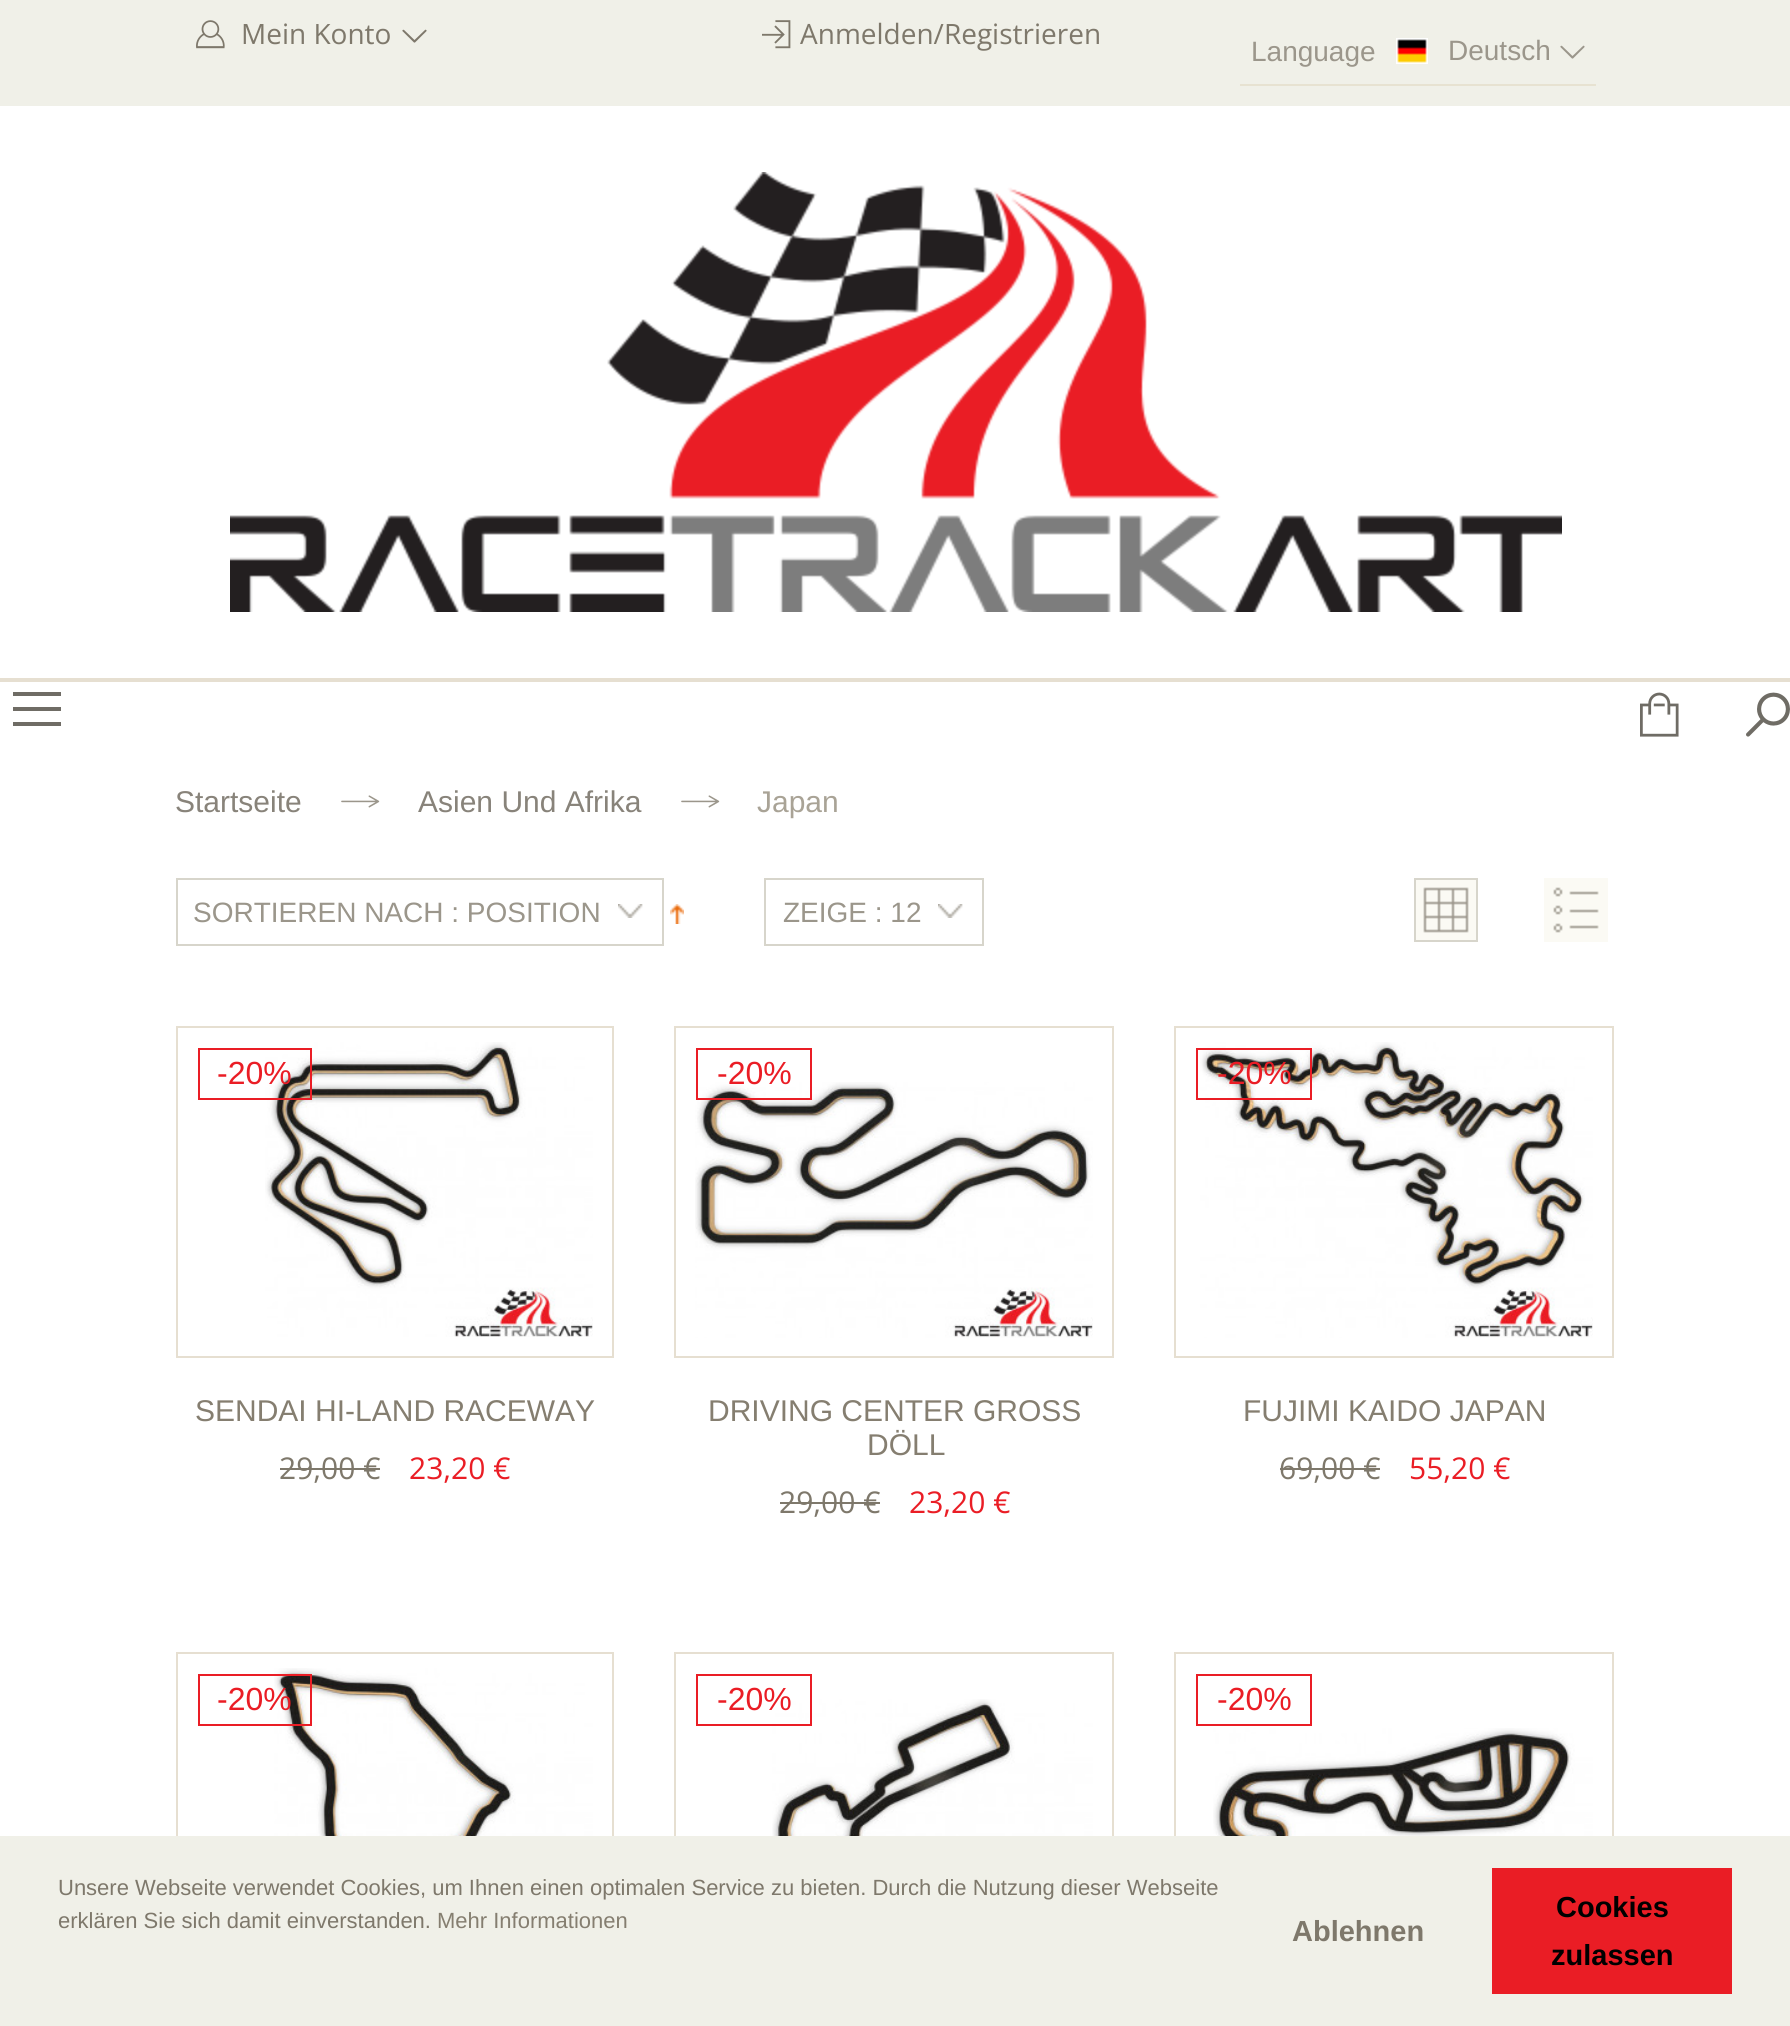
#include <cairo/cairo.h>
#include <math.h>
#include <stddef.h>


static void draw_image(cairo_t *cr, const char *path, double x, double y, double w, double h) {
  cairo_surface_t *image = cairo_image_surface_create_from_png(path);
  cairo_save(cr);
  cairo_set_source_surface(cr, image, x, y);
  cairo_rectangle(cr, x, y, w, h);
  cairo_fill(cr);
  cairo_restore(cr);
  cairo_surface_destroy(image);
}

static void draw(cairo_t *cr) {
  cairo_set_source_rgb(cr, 1, 1, 1);
  cairo_paint(cr);
  cairo_set_source_rgb(cr, 240 / 255.0, 240 / 255.0, 232 / 255.0);
  cairo_rectangle(cr, 0, 0, 1790, 106);
  cairo_fill(cr);
  draw_image(cr, "images/1.png", 196, 20, 29, 29);
  draw_image(cr, "images/2.png", 402, 29, 25, 14);
  draw_image(cr, "images/3.png", 762, 20, 29, 29);
  draw_image(cr, "images/4.png", 1396, 38, 32, 26);
  cairo_set_source_rgb(cr, 231 / 255.0, 226 / 255.0, 209 / 255.0);
  cairo_rectangle(cr, 1240, 84, 356, 2);
  cairo_fill(cr);
  draw_image(cr, "images/5.png", 1560, 45, 25, 14);
  draw_image(cr, "images/6.png", 230, 172, 1332, 440);
  cairo_set_source_rgb(cr, 230 / 255.0, 223 / 255.0, 209 / 255.0);
  cairo_rectangle(cr, 0, 678, 1790, 4);
  cairo_fill(cr);
  cairo_set_source_rgb(cr, 111 / 255.0, 108 / 255.0, 101 / 255.0);
  cairo_new_path(cr);
  cairo_move_to(cr, 13, 692);
  cairo_line_to(cr, 61, 692);
  cairo_line_to(cr, 61, 696);
  cairo_line_to(cr, 13, 696);
  cairo_close_path(cr);
  cairo_move_to(cr, 13, 707);
  cairo_line_to(cr, 61, 707);
  cairo_line_to(cr, 61, 711);
  cairo_line_to(cr, 13, 711);
  cairo_close_path(cr);
  cairo_move_to(cr, 13, 722);
  cairo_line_to(cr, 61, 722);
  cairo_line_to(cr, 61, 726);
  cairo_line_to(cr, 13, 726);
  cairo_close_path(cr);
  cairo_fill(cr);
  draw_image(cr, "images/7.png", 1640, 692, 39, 45);
  draw_image(cr, "images/8.png", 1746, 692, 44, 45);
  draw_image(cr, "images/9.png", 341, 795, 39, 13);
  draw_image(cr, "images/9.png", 681, 795, 39, 13);
  draw_image(cr, "images/10.png", 618, 904, 25, 14);
  cairo_rectangle(cr, 177, 879, 486, 66);
  cairo_set_source_rgb(cr, 215 / 255.0, 213 / 255.0, 203 / 255.0);
  cairo_stroke(cr);
  draw_image(cr, "images/11.png", 670, 904, 14, 20);
  draw_image(cr, "images/10.png", 938, 904, 25, 14);
  cairo_rectangle(cr, 765, 879, 218, 66);
  cairo_stroke(cr);
  cairo_set_source_rgb(cr, 155 / 255.0, 150 / 255.0, 139 / 255.0);
  cairo_rectangle(cr, 1423, 887, 46, 46);
  cairo_fill(cr);
  draw_image(cr, "images/12.png", 1416, 880, 60, 60);
  cairo_rectangle(cr, 1415, 879, 62, 62);
  cairo_set_source_rgb(cr, 215 / 255.0, 213 / 255.0, 203 / 255.0);
  cairo_stroke(cr);
  cairo_set_source_rgb(cr, 155 / 255.0, 150 / 255.0, 139 / 255.0);
  cairo_rectangle(cr, 1553, 887, 46, 46);
  cairo_fill(cr);
  draw_image(cr, "images/13.png", 1544, 878, 64, 64);
  cairo_rectangle(cr, 177, 1027, 436, 330);
  cairo_set_source_rgb(cr, 230 / 255.0, 223 / 255.0, 209 / 255.0);
  cairo_stroke(cr);
  draw_image(cr, "images/14.png", 265, 1042, 328, 295);
  cairo_rectangle(cr, 199, 1049, 112, 50);
  cairo_set_source_rgb(cr, 234 / 255.0, 29 / 255.0, 37 / 255.0);
  cairo_stroke(cr);
  cairo_set_source_rgb(cr, 126 / 255.0, 120 / 255.0, 107 / 255.0);
  cairo_rectangle(cr, 280, 1468, 100, 2);
  cairo_fill(cr);
  cairo_rectangle(cr, 675, 1027, 438, 330);
  cairo_set_source_rgb(cr, 230 / 255.0, 223 / 255.0, 209 / 255.0);
  cairo_stroke(cr);
  draw_image(cr, "images/15.png", 695, 1082, 398, 256);
  cairo_rectangle(cr, 697, 1049, 114, 50);
  cairo_set_source_rgb(cr, 234 / 255.0, 29 / 255.0, 37 / 255.0);
  cairo_stroke(cr);
  cairo_set_source_rgb(cr, 126 / 255.0, 120 / 255.0, 107 / 255.0);
  cairo_rectangle(cr, 780, 1502, 100, 2);
  cairo_fill(cr);
  cairo_rectangle(cr, 1175, 1027, 438, 330);
  cairo_set_source_rgb(cr, 230 / 255.0, 223 / 255.0, 209 / 255.0);
  cairo_stroke(cr);
  draw_image(cr, "images/16.png", 1200, 1042, 393, 296);
  cairo_rectangle(cr, 1197, 1049, 114, 50);
  cairo_set_source_rgb(cr, 234 / 255.0, 29 / 255.0, 37 / 255.0);
  cairo_stroke(cr);
  cairo_set_source_rgb(cr, 126 / 255.0, 120 / 255.0, 107 / 255.0);
  cairo_rectangle(cr, 1280, 1468, 100, 2);
  cairo_fill(cr);
  cairo_rectangle(cr, 177, 1653, 436, 330);
  cairo_set_source_rgb(cr, 230 / 255.0, 223 / 255.0, 209 / 255.0);
  cairo_stroke(cr);
  draw_image(cr, "images/17.png", 274, 1668, 319, 168);
  cairo_rectangle(cr, 199, 1675, 112, 50);
  cairo_set_source_rgb(cr, 234 / 255.0, 29 / 255.0, 37 / 255.0);
  cairo_stroke(cr);
  cairo_rectangle(cr, 675, 1653, 438, 330);
  cairo_set_source_rgb(cr, 230 / 255.0, 223 / 255.0, 209 / 255.0);
  cairo_stroke(cr);
  draw_image(cr, "images/18.png", 772, 1699, 321, 137);
  cairo_rectangle(cr, 697, 1675, 114, 50);
  cairo_set_source_rgb(cr, 234 / 255.0, 29 / 255.0, 37 / 255.0);
  cairo_stroke(cr);
  cairo_rectangle(cr, 1175, 1653, 438, 330);
  cairo_set_source_rgb(cr, 230 / 255.0, 223 / 255.0, 209 / 255.0);
  cairo_stroke(cr);
  cairo_rectangle(cr, 1197, 1675, 114, 50);
  cairo_set_source_rgb(cr, 234 / 255.0, 29 / 255.0, 37 / 255.0);
  cairo_stroke(cr);
  draw_image(cr, "images/19.png", 1213, 1728, 380, 108);
  cairo_set_source_rgb(cr, 240 / 255.0, 240 / 255.0, 232 / 255.0);
  cairo_rectangle(cr, 0, 1836, 1790, 190);
  cairo_fill(cr);
  cairo_set_source_rgb(cr, 234 / 255.0, 29 / 255.0, 37 / 255.0);
  cairo_rectangle(cr, 1492, 1868, 240, 126);
  cairo_fill(cr);
  cairo_select_font_face(cr, "Open Sans", CAIRO_FONT_SLANT_NORMAL, CAIRO_FONT_WEIGHT_NORMAL);
  cairo_set_font_size(cr, 28);
  cairo_set_source_rgb(cr, 126 / 255.0, 120 / 255.0, 107 / 255.0);
  cairo_move_to(cr, 241, 44);
  cairo_show_text(cr, "Mein Konto");
  cairo_move_to(cr, 800, 44);
  cairo_show_text(cr, "Anmelden/Registrieren");
  cairo_select_font_face(cr, "Liberation Sans", CAIRO_FONT_SLANT_NORMAL, CAIRO_FONT_WEIGHT_NORMAL);
  cairo_set_source_rgb(cr, 155 / 255.0, 150 / 255.0, 139 / 255.0);
  cairo_move_to(cr, 1251, 61);
  cairo_show_text(cr, "Language");
  cairo_move_to(cr, 1448, 60);
  cairo_show_text(cr, "Deutsch");
  cairo_set_font_size(cr, 30);
  cairo_set_source_rgb(cr, 136 / 255.0, 131 / 255.0, 122 / 255.0);
  cairo_move_to(cr, 175, 812);
  cairo_show_text(cr, "Startseite");
  cairo_move_to(cr, 418, 812);
  cairo_show_text(cr, "Asien Und Afrika");
  cairo_set_source_rgb(cr, 169 / 255.0, 163 / 255.0, 150 / 255.0);
  cairo_move_to(cr, 757, 812);
  cairo_show_text(cr, "Japan");
  cairo_set_font_size(cr, 28);
  cairo_set_source_rgb(cr, 155 / 255.0, 150 / 255.0, 139 / 255.0);
  cairo_move_to(cr, 193, 922);
  cairo_show_text(cr, "SORTIEREN NACH : POSITION");
  cairo_move_to(cr, 783, 922);
  cairo_show_text(cr, "ZEIGE : 12");
  cairo_set_font_size(cr, 32);
  cairo_set_source_rgb(cr, 234 / 255.0, 29 / 255.0, 37 / 255.0);
  cairo_move_to(cr, 217, 1084);
  cairo_show_text(cr, "-20%");
  cairo_set_font_size(cr, 30);
  cairo_set_source_rgb(cr, 133 / 255.0, 126 / 255.0, 112 / 255.0);
  cairo_move_to(cr, 195, 1421);
  cairo_show_text(cr, "SENDAI HI-LAND RACEWAY");
  cairo_select_font_face(cr, "Open Sans", CAIRO_FONT_SLANT_NORMAL, CAIRO_FONT_WEIGHT_NORMAL);
  cairo_set_source_rgb(cr, 126 / 255.0, 120 / 255.0, 107 / 255.0);
  cairo_move_to(cr, 279, 1479);
  cairo_show_text(cr, "29,00 €");
  cairo_set_source_rgb(cr, 234 / 255.0, 29 / 255.0, 37 / 255.0);
  cairo_move_to(cr, 409, 1479);
  cairo_show_text(cr, "23,20 €");
  cairo_select_font_face(cr, "Liberation Sans", CAIRO_FONT_SLANT_NORMAL, CAIRO_FONT_WEIGHT_NORMAL);
  cairo_set_font_size(cr, 32);
  cairo_move_to(cr, 717, 1084);
  cairo_show_text(cr, "-20%");
  cairo_set_font_size(cr, 30);
  cairo_set_source_rgb(cr, 133 / 255.0, 126 / 255.0, 112 / 255.0);
  cairo_move_to(cr, 708, 1421);
  cairo_show_text(cr, "DRIVING CENTER GROSS");
  cairo_move_to(cr, 867, 1455);
  cairo_show_text(cr, "DÖLL");
  cairo_select_font_face(cr, "Open Sans", CAIRO_FONT_SLANT_NORMAL, CAIRO_FONT_WEIGHT_NORMAL);
  cairo_set_source_rgb(cr, 126 / 255.0, 120 / 255.0, 107 / 255.0);
  cairo_move_to(cr, 779, 1513);
  cairo_show_text(cr, "29,00 €");
  cairo_set_source_rgb(cr, 234 / 255.0, 29 / 255.0, 37 / 255.0);
  cairo_move_to(cr, 909, 1513);
  cairo_show_text(cr, "23,20 €");
  cairo_select_font_face(cr, "Liberation Sans", CAIRO_FONT_SLANT_NORMAL, CAIRO_FONT_WEIGHT_NORMAL);
  cairo_set_font_size(cr, 32);
  cairo_move_to(cr, 1217, 1084);
  cairo_show_text(cr, "-20%");
  cairo_set_font_size(cr, 30);
  cairo_set_source_rgb(cr, 133 / 255.0, 126 / 255.0, 112 / 255.0);
  cairo_move_to(cr, 1243, 1421);
  cairo_show_text(cr, "FUJIMI KAIDO JAPAN");
  cairo_select_font_face(cr, "Open Sans", CAIRO_FONT_SLANT_NORMAL, CAIRO_FONT_WEIGHT_NORMAL);
  cairo_set_source_rgb(cr, 126 / 255.0, 120 / 255.0, 107 / 255.0);
  cairo_move_to(cr, 1279, 1479);
  cairo_show_text(cr, "69,00 €");
  cairo_set_source_rgb(cr, 234 / 255.0, 29 / 255.0, 37 / 255.0);
  cairo_move_to(cr, 1409, 1479);
  cairo_show_text(cr, "55,20 €");
  cairo_select_font_face(cr, "Liberation Sans", CAIRO_FONT_SLANT_NORMAL, CAIRO_FONT_WEIGHT_NORMAL);
  cairo_set_font_size(cr, 32);
  cairo_move_to(cr, 217, 1710);
  cairo_show_text(cr, "-20%");
  cairo_move_to(cr, 717, 1710);
  cairo_show_text(cr, "-20%");
  cairo_move_to(cr, 1217, 1710);
  cairo_show_text(cr, "-20%");
  cairo_set_font_size(cr, 22);
  cairo_set_source_rgb(cr, 126 / 255.0, 120 / 255.0, 107 / 255.0);
  cairo_move_to(cr, 58, 1895);
  cairo_show_text(cr, "Unsere Webseite verwendet Cookies, um Ihnen einen optimalen Service zu bieten. Durch die Nutzung dieser Webseite");
  cairo_move_to(cr, 58, 1928);
  cairo_show_text(cr, "erklären Sie sich damit einverstanden.");
  cairo_set_source_rgb(cr, 133 / 255.0, 126 / 255.0, 112 / 255.0);
  cairo_move_to(cr, 437, 1928);
  cairo_show_text(cr, "Mehr Informationen");
  cairo_select_font_face(cr, "Liberation Sans", CAIRO_FONT_SLANT_NORMAL, CAIRO_FONT_WEIGHT_BOLD);
  cairo_set_font_size(cr, 29);
  cairo_set_source_rgb(cr, 126 / 255.0, 120 / 255.0, 107 / 255.0);
  cairo_move_to(cr, 1292, 1941);
  cairo_show_text(cr, "Ablehnen");
  cairo_set_source_rgb(cr, 0, 0, 0);
  cairo_move_to(cr, 1556, 1917);
  cairo_show_text(cr, "Cookies");
  cairo_move_to(cr, 1551, 1965);
  cairo_show_text(cr, "zulassen");
}

int main(void) {
  cairo_surface_t *surface = cairo_image_surface_create(CAIRO_FORMAT_RGB24, 1790, 2026);
  cairo_t *cr = cairo_create(surface);
  cairo_font_options_t *options = cairo_font_options_create();
  cairo_font_options_set_hint_metrics(options, CAIRO_HINT_METRICS_OFF);
  cairo_font_options_set_hint_style(options, CAIRO_HINT_STYLE_NONE);
  cairo_set_font_options(cr, options);
  cairo_set_miter_limit(cr, 4);
  draw(cr);
  cairo_surface_write_to_png(surface, "out.png");
  cairo_font_options_destroy(options);
  cairo_destroy(cr);
  cairo_surface_destroy(surface);
  return 0;
}
